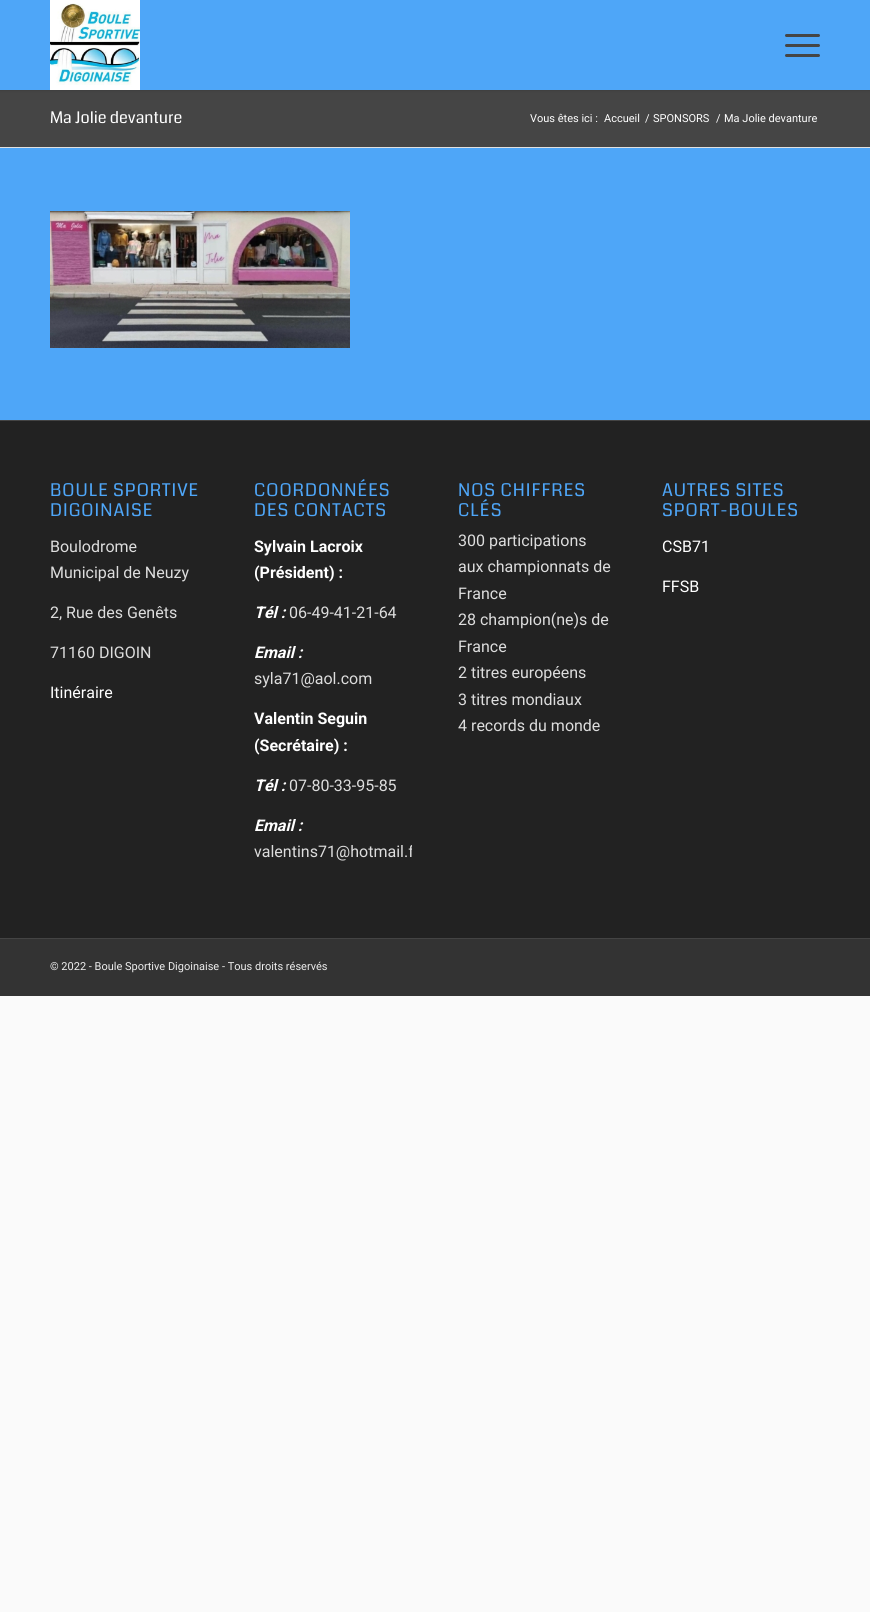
#include <cairo/cairo.h>
#include <math.h>
#include <stddef.h>


static void draw_spaced(cairo_t *cr, double x, double y, const char *s, double letter, double word) {
  cairo_move_to(cr, x, y);
  while (*s) {
    char ch[5] = {0};
    int n = 0;
    do ch[n++] = *s++; while ((*s & 0xC0) == 0x80);
    cairo_show_text(cr, ch);
    cairo_rel_move_to(cr, letter + word * (*ch == ' '), 0);
  }
}

static void rounded_rect(cairo_t *cr, double x, double y, double w, double h, double r) {
  cairo_new_sub_path(cr);
  cairo_arc(cr, x + w - r, y + h - r, r, 0, M_PI / 2);
  cairo_arc(cr, x + r, y + h - r, r, M_PI / 2, M_PI);
  cairo_arc(cr, x + r, y + r, r, M_PI, 1.5 * M_PI);
  cairo_arc(cr, x + w - r, y + r, r, 1.5 * M_PI, 2 * M_PI);
  cairo_close_path(cr);
}

static void draw_shadow(cairo_t *cr, double x, double y, double w, double h, double r, double blur, double alpha) {
  cairo_push_group_with_content(cr, CAIRO_CONTENT_ALPHA);
  cairo_set_operator(cr, CAIRO_OPERATOR_SOURCE);
  for (int i = 15; i >= -15 && fmin(w, h) + blur * i / 3 > 0; i -= 2) {
    double e = blur * i / 6;
    cairo_set_source_rgba(cr, 0, 0, 0, alpha * erfc((i - 1) / 8.5) / 2);
    rounded_rect(cr, x - e, y - e, w + 2 * e, h + 2 * e, fmax(0, fmin(r + e + blur * .6, fmin(w, h) / 2 + e)));
    cairo_fill(cr);
  }
  cairo_pattern_t *soft = cairo_pop_group(cr);
  cairo_mask(cr, soft);
  cairo_pattern_destroy(soft);
}

static void draw_image(cairo_t *cr, const char *path, double x, double y, double w, double h) {
  cairo_surface_t *image = cairo_image_surface_create_from_png(path);
  cairo_save(cr);
  cairo_set_source_surface(cr, image, x, y);
  cairo_rectangle(cr, x, y, w, h);
  cairo_fill(cr);
  cairo_restore(cr);
  cairo_surface_destroy(image);
}

static void draw(cairo_t *cr) {
  cairo_set_source_rgb(cr, 250 / 255.0, 250 / 255.0, 250 / 255.0);
  cairo_paint(cr);
  cairo_set_source_rgb(cr, 69 / 255.0, 69 / 255.0, 69 / 255.0);
  cairo_rectangle(cr, 0, 90, 870, 57);
  cairo_fill(cr);
  cairo_set_source_rgb(cr, 0, 0, 0);
  draw_shadow(cr, -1, -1, 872, 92, 0, 1, 0.1);
  cairo_set_source_rgb(cr, 78 / 255.0, 166 / 255.0, 248 / 255.0);
  cairo_rectangle(cr, 0, 0, 870, 90);
  cairo_fill(cr);
  draw_image(cr, "images/1.png", 50, 0, 90, 90);
  cairo_set_source_rgb(cr, 69 / 255.0, 69 / 255.0, 69 / 255.0);
  rounded_rect(cr, 785, 44, 35, 3, 1.5);
  cairo_fill(cr);
  rounded_rect(cr, 785, 34, 35, 3, 1.5);
  cairo_fill(cr);
  rounded_rect(cr, 785, 54, 35, 3, 1.5);
  cairo_fill(cr);
  cairo_set_source_rgb(cr, 78 / 255.0, 166 / 255.0, 248 / 255.0);
  cairo_rectangle(cr, 0, 148, 870, 272);
  cairo_fill(cr);
  cairo_set_source_rgb(cr, 225 / 255.0, 225 / 255.0, 225 / 255.0);
  cairo_rectangle(cr, 0, 147, 870, 1);
  cairo_fill(cr);
  draw_image(cr, "images/2.png", 50, 211, 300, 137);
  cairo_set_source_rgb(cr, 34 / 255.0, 34 / 255.0, 34 / 255.0);
  cairo_rectangle(cr, 0, 421, 870, 517);
  cairo_fill(cr);
  cairo_set_source_rgb(cr, 68 / 255.0, 68 / 255.0, 68 / 255.0);
  cairo_rectangle(cr, 0, 420, 870, 1);
  cairo_fill(cr);
  cairo_set_source_rgb(cr, 51 / 255.0, 51 / 255.0, 51 / 255.0);
  cairo_rectangle(cr, 0, 939, 870, 57);
  cairo_fill(cr);
  cairo_set_source_rgb(cr, 68 / 255.0, 68 / 255.0, 68 / 255.0);
  cairo_rectangle(cr, 0, 938, 870, 1);
  cairo_fill(cr);
  cairo_select_font_face(cr, "Coda", CAIRO_FONT_SLANT_NORMAL, CAIRO_FONT_WEIGHT_NORMAL);
  cairo_set_font_size(cr, 16);
  cairo_set_source_rgb(cr, 1, 1, 1);
  cairo_move_to(cr, 50, 123);
  cairo_show_text(cr, "Ma Jolie devanture");
  cairo_select_font_face(cr, "Roboto", CAIRO_FONT_SLANT_NORMAL, CAIRO_FONT_WEIGHT_NORMAL);
  cairo_set_font_size(cr, 11);
  cairo_move_to(cr, 530, 122);
  cairo_show_text(cr, "Vous êtes ici :");
  cairo_move_to(cr, 604, 122);
  cairo_show_text(cr, "Accueil");
  cairo_move_to(cr, 645, 122);
  cairo_show_text(cr, "/");
  cairo_move_to(cr, 653, 122);
  cairo_show_text(cr, "SPONSORS");
  cairo_move_to(cr, 716, 122);
  cairo_show_text(cr, "/");
  cairo_move_to(cr, 724, 122);
  cairo_show_text(cr, "Ma Jolie devanture");
  cairo_select_font_face(cr, "Coda", CAIRO_FONT_SLANT_NORMAL, CAIRO_FONT_WEIGHT_NORMAL);
  cairo_set_font_size(cr, 17.5);
  cairo_set_source_rgb(cr, 78 / 255.0, 166 / 255.0, 248 / 255.0);
  draw_spaced(cr, 50, 496, "BOULE SPORTIVE", 1, 0);
  draw_spaced(cr, 50, 516, "DIGOINAISE", 1, 0);
  cairo_select_font_face(cr, "Roboto", CAIRO_FONT_SLANT_NORMAL, CAIRO_FONT_WEIGHT_NORMAL);
  cairo_set_font_size(cr, 16);
  cairo_set_source_rgb(cr, 221 / 255.0, 221 / 255.0, 221 / 255.0);
  cairo_move_to(cr, 50, 552);
  cairo_show_text(cr, "Boulodrome");
  cairo_move_to(cr, 50, 578);
  cairo_show_text(cr, "Municipal de Neuzy");
  cairo_move_to(cr, 50, 618);
  cairo_show_text(cr, "2, Rue des Genêts");
  cairo_move_to(cr, 50, 658);
  cairo_show_text(cr, "71160 DIGOIN");
  cairo_set_source_rgb(cr, 1, 1, 1);
  cairo_move_to(cr, 50, 698);
  cairo_show_text(cr, "Itinéraire");
  cairo_select_font_face(cr, "Coda", CAIRO_FONT_SLANT_NORMAL, CAIRO_FONT_WEIGHT_NORMAL);
  cairo_set_font_size(cr, 17.5);
  cairo_set_source_rgb(cr, 78 / 255.0, 166 / 255.0, 248 / 255.0);
  draw_spaced(cr, 254, 496, "COORDONNÉES", 1, 0);
  draw_spaced(cr, 254, 516, "DES CONTACTS", 1, 0);
  cairo_select_font_face(cr, "Roboto", CAIRO_FONT_SLANT_NORMAL, CAIRO_FONT_WEIGHT_BOLD);
  cairo_set_font_size(cr, 16);
  cairo_set_source_rgb(cr, 1, 1, 1);
  cairo_move_to(cr, 254, 552);
  cairo_show_text(cr, "Sylvain Lacroix");
  cairo_move_to(cr, 254, 578);
  cairo_show_text(cr, "(Président) :");
  cairo_select_font_face(cr, "Roboto", CAIRO_FONT_SLANT_ITALIC, CAIRO_FONT_WEIGHT_BOLD);
  cairo_move_to(cr, 254, 618);
  cairo_show_text(cr, "Tél :");
  cairo_select_font_face(cr, "Roboto", CAIRO_FONT_SLANT_NORMAL, CAIRO_FONT_WEIGHT_NORMAL);
  cairo_set_source_rgb(cr, 221 / 255.0, 221 / 255.0, 221 / 255.0);
  cairo_move_to(cr, 289, 618);
  cairo_show_text(cr, "06-49-41-21-64");
  cairo_select_font_face(cr, "Roboto", CAIRO_FONT_SLANT_ITALIC, CAIRO_FONT_WEIGHT_BOLD);
  cairo_set_source_rgb(cr, 1, 1, 1);
  cairo_move_to(cr, 254, 658);
  cairo_show_text(cr, "Email :");
  cairo_select_font_face(cr, "Roboto", CAIRO_FONT_SLANT_NORMAL, CAIRO_FONT_WEIGHT_NORMAL);
  cairo_set_source_rgb(cr, 221 / 255.0, 221 / 255.0, 221 / 255.0);
  cairo_move_to(cr, 254, 684);
  cairo_show_text(cr, "syla71@aol.com");
  cairo_select_font_face(cr, "Roboto", CAIRO_FONT_SLANT_NORMAL, CAIRO_FONT_WEIGHT_BOLD);
  cairo_set_source_rgb(cr, 1, 1, 1);
  cairo_move_to(cr, 254, 724);
  cairo_show_text(cr, "Valentin Seguin");
  cairo_move_to(cr, 254, 751);
  cairo_show_text(cr, "(Secrétaire) :");
  cairo_select_font_face(cr, "Roboto", CAIRO_FONT_SLANT_ITALIC, CAIRO_FONT_WEIGHT_BOLD);
  cairo_move_to(cr, 254, 791);
  cairo_show_text(cr, "Tél :");
  cairo_select_font_face(cr, "Roboto", CAIRO_FONT_SLANT_NORMAL, CAIRO_FONT_WEIGHT_NORMAL);
  cairo_set_source_rgb(cr, 221 / 255.0, 221 / 255.0, 221 / 255.0);
  cairo_move_to(cr, 289, 791);
  cairo_show_text(cr, "07-80-33-95-85");
  cairo_select_font_face(cr, "Roboto", CAIRO_FONT_SLANT_ITALIC, CAIRO_FONT_WEIGHT_BOLD);
  cairo_set_source_rgb(cr, 1, 1, 1);
  cairo_move_to(cr, 254, 831);
  cairo_show_text(cr, "Email :");
  cairo_save(cr);
  cairo_rectangle(cr, 254, 466, 158, 413);
  cairo_clip(cr);
  cairo_select_font_face(cr, "Roboto", CAIRO_FONT_SLANT_NORMAL, CAIRO_FONT_WEIGHT_NORMAL);
  cairo_set_source_rgb(cr, 221 / 255.0, 221 / 255.0, 221 / 255.0);
  cairo_move_to(cr, 254, 857);
  cairo_show_text(cr, "valentins71@hotmail.f");
  cairo_restore(cr);
  cairo_select_font_face(cr, "Coda", CAIRO_FONT_SLANT_NORMAL, CAIRO_FONT_WEIGHT_NORMAL);
  cairo_set_font_size(cr, 17.5);
  cairo_set_source_rgb(cr, 78 / 255.0, 166 / 255.0, 248 / 255.0);
  draw_spaced(cr, 458, 496, "NOS CHIFFRES", 1, 0);
  draw_spaced(cr, 458, 516, "CLÉS", 1, 0);
  cairo_select_font_face(cr, "Roboto", CAIRO_FONT_SLANT_NORMAL, CAIRO_FONT_WEIGHT_NORMAL);
  cairo_set_font_size(cr, 16);
  cairo_set_source_rgb(cr, 221 / 255.0, 221 / 255.0, 221 / 255.0);
  cairo_move_to(cr, 458, 546);
  cairo_show_text(cr, "300 participations");
  cairo_move_to(cr, 458, 572);
  cairo_show_text(cr, "aux championnats de");
  cairo_move_to(cr, 458, 599);
  cairo_show_text(cr, "France");
  cairo_move_to(cr, 458, 625);
  cairo_show_text(cr, "28 champion(ne)s de");
  cairo_move_to(cr, 458, 652);
  cairo_show_text(cr, "France");
  cairo_move_to(cr, 458, 678);
  cairo_show_text(cr, "2 titres européens");
  cairo_move_to(cr, 458, 705);
  cairo_show_text(cr, "3 titres mondiaux");
  cairo_move_to(cr, 458, 731);
  cairo_show_text(cr, "4 records du monde");
  cairo_select_font_face(cr, "Coda", CAIRO_FONT_SLANT_NORMAL, CAIRO_FONT_WEIGHT_NORMAL);
  cairo_set_font_size(cr, 17.5);
  cairo_set_source_rgb(cr, 78 / 255.0, 166 / 255.0, 248 / 255.0);
  draw_spaced(cr, 662, 496, "AUTRES SITES", 1, 0);
  draw_spaced(cr, 662, 516, "SPORT-BOULES", 1, 0);
  cairo_select_font_face(cr, "Roboto", CAIRO_FONT_SLANT_NORMAL, CAIRO_FONT_WEIGHT_NORMAL);
  cairo_set_font_size(cr, 16);
  cairo_set_source_rgb(cr, 1, 1, 1);
  cairo_move_to(cr, 662, 552);
  cairo_show_text(cr, "CSB71");
  cairo_move_to(cr, 662, 592);
  cairo_show_text(cr, "FFSB");
  cairo_set_font_size(cr, 11);
  cairo_set_source_rgb(cr, 238 / 255.0, 238 / 255.0, 238 / 255.0);
  cairo_move_to(cr, 50, 970);
  cairo_show_text(cr, "© 2022 - Boule Sportive Digoinaise - Tous droits réservés");
}

int main(void) {
  cairo_surface_t *surface = cairo_image_surface_create(CAIRO_FORMAT_RGB24, 870, 1612);
  cairo_t *cr = cairo_create(surface);
  cairo_font_options_t *options = cairo_font_options_create();
  cairo_font_options_set_hint_metrics(options, CAIRO_HINT_METRICS_OFF);
  cairo_font_options_set_hint_style(options, CAIRO_HINT_STYLE_NONE);
  cairo_set_font_options(cr, options);
  cairo_set_miter_limit(cr, 4);
  draw(cr);
  cairo_surface_write_to_png(surface, "out.png");
  cairo_font_options_destroy(options);
  cairo_destroy(cr);
  cairo_surface_destroy(surface);
  return 0;
}
